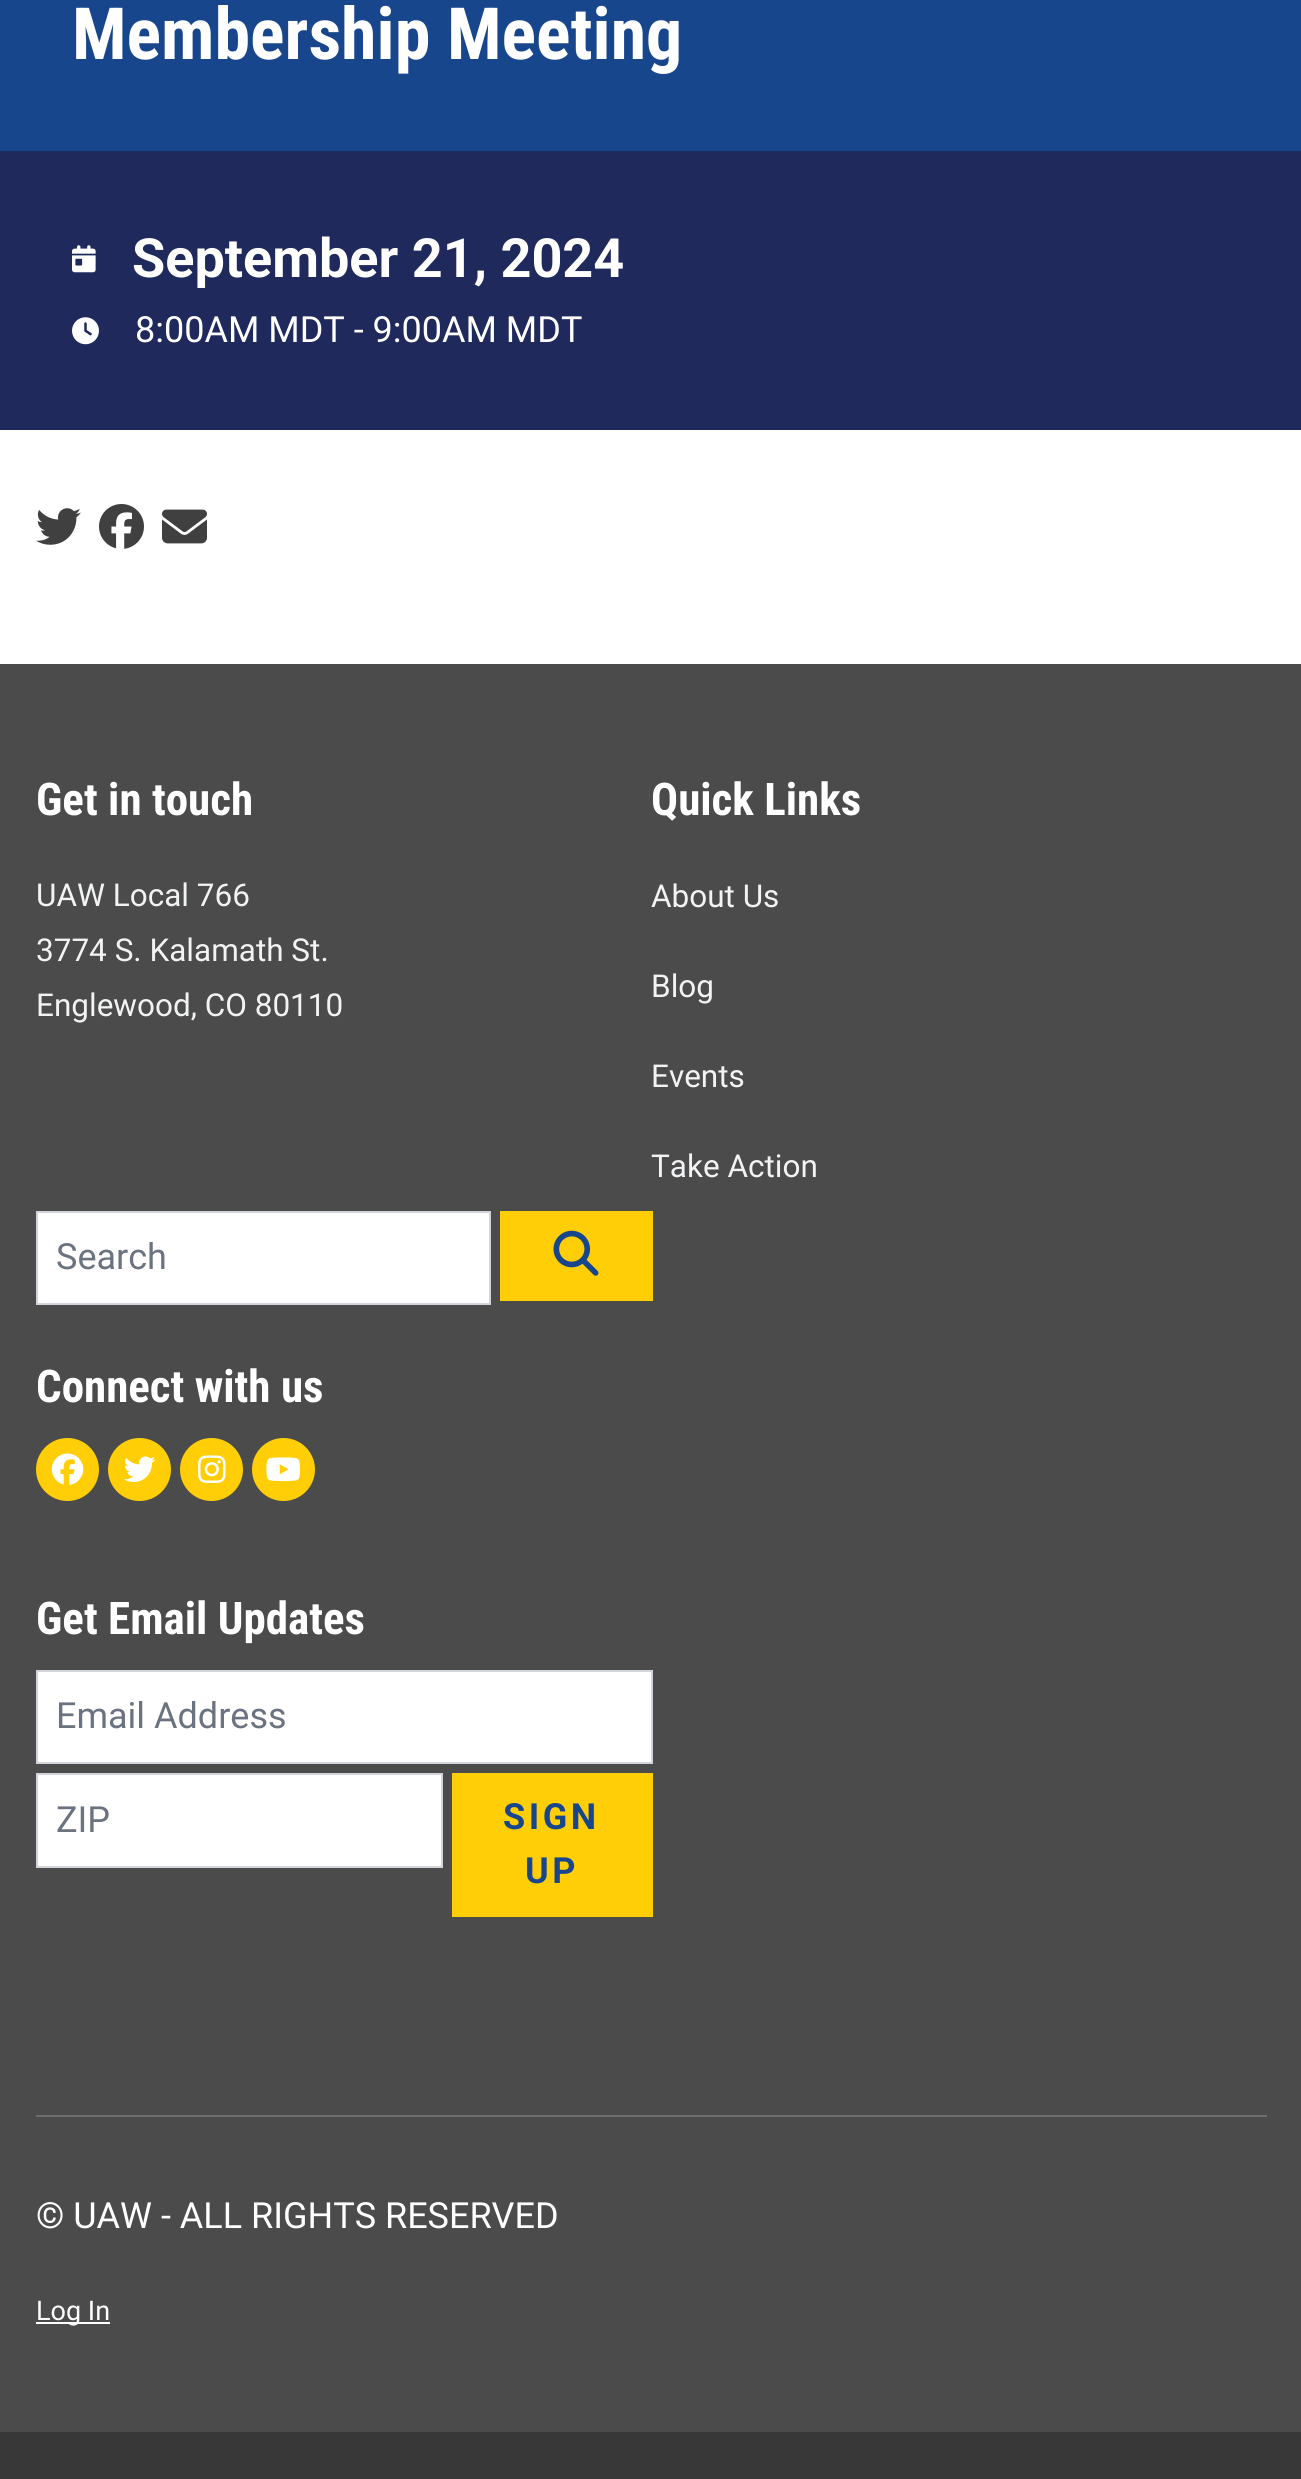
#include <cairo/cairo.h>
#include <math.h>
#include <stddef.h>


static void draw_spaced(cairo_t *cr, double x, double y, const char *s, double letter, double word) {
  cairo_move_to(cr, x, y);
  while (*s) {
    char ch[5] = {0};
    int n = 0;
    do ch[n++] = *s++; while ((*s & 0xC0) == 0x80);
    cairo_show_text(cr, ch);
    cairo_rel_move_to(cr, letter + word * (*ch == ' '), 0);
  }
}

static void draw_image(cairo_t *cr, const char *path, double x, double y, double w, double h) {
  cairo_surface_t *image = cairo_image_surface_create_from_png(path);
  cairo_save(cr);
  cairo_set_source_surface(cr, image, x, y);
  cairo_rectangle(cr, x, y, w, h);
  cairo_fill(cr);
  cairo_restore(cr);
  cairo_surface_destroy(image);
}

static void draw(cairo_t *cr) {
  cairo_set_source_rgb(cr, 1, 1, 1);
  cairo_paint(cr);
  cairo_set_source_rgb(cr, 24 / 255.0, 70 / 255.0, 140 / 255.0);
  cairo_rectangle(cr, 0, 0, 1301, 151);
  cairo_fill(cr);
  cairo_set_source_rgb(cr, 31 / 255.0, 41 / 255.0, 92 / 255.0);
  cairo_rectangle(cr, 0, 151, 1301, 279);
  cairo_fill(cr);
  draw_image(cr, "images/1.png", 72, 245, 24, 28);
  draw_image(cr, "images/2.png", 72, 317, 27, 28);
  draw_image(cr, "images/3.png", 36, 508, 45, 37);
  draw_image(cr, "images/4.png", 99, 504, 45, 45);
  draw_image(cr, "images/5.png", 162, 509, 45, 35);
  cairo_set_source_rgb(cr, 75 / 255.0, 75 / 255.0, 75 / 255.0);
  cairo_rectangle(cr, 0, 664, 1301, 1768);
  cairo_fill(cr);
  cairo_set_source_rgb(cr, 1, 1, 1);
  cairo_rectangle(cr, 37, 1212, 453, 92);
  cairo_fill_preserve(cr);
  cairo_set_source_rgb(cr, 209 / 255.0, 213 / 255.0, 219 / 255.0);
  cairo_stroke(cr);
  cairo_set_source_rgb(cr, 1, 206 / 255.0, 7 / 255.0);
  cairo_rectangle(cr, 500, 1211, 153, 90);
  cairo_fill(cr);
  draw_image(cr, "images/6.png", 553, 1230, 46, 46);
  cairo_arc(cr, 67.5, 1469.5, 31.5, 0, 2 * M_PI);
  cairo_fill(cr);
  draw_image(cr, "images/7.png", 51, 1453, 33, 32);
  cairo_arc(cr, 139.5, 1469.5, 31.5, 0, 2 * M_PI);
  cairo_fill(cr);
  draw_image(cr, "images/8.png", 124, 1456, 32, 26);
  cairo_arc(cr, 211.5, 1469.5, 31.5, 0, 2 * M_PI);
  cairo_fill(cr);
  draw_image(cr, "images/9.png", 198, 1455, 28, 28);
  cairo_arc(cr, 283.5, 1469.5, 31.5, 0, 2 * M_PI);
  cairo_fill(cr);
  draw_image(cr, "images/10.png", 266, 1457, 34, 25);
  cairo_set_source_rgb(cr, 1, 1, 1);
  cairo_rectangle(cr, 37, 1671, 615, 92);
  cairo_fill_preserve(cr);
  cairo_set_source_rgb(cr, 209 / 255.0, 213 / 255.0, 219 / 255.0);
  cairo_stroke(cr);
  cairo_set_source_rgb(cr, 1, 1, 1);
  cairo_rectangle(cr, 37, 1774, 405, 93);
  cairo_fill_preserve(cr);
  cairo_set_source_rgb(cr, 209 / 255.0, 213 / 255.0, 219 / 255.0);
  cairo_stroke(cr);
  cairo_set_source_rgb(cr, 1, 206 / 255.0, 7 / 255.0);
  cairo_rectangle(cr, 452, 1773, 201, 144);
  cairo_fill(cr);
  cairo_set_source_rgb(cr, 108 / 255.0, 109 / 255.0, 109 / 255.0);
  cairo_rectangle(cr, 36, 2115, 1231, 2);
  cairo_fill(cr);
  cairo_set_source_rgb(cr, 1, 1, 1);
  cairo_rectangle(cr, 36, 2322, 74, 2);
  cairo_fill(cr);
  cairo_set_source_rgb(cr, 56 / 255.0, 56 / 255.0, 56 / 255.0);
  cairo_rectangle(cr, 0, 2432, 1301, 47);
  cairo_fill(cr);
  cairo_select_font_face(cr, "Roboto Condensed", CAIRO_FONT_SLANT_NORMAL, CAIRO_FONT_WEIGHT_BOLD);
  cairo_set_font_size(cr, 72);
  cairo_set_source_rgb(cr, 1, 1, 1);
  cairo_move_to(cr, 72, 59);
  cairo_show_text(cr, "Membership Meeting");
  cairo_select_font_face(cr, "Roboto", CAIRO_FONT_SLANT_NORMAL, CAIRO_FONT_WEIGHT_BOLD);
  cairo_set_font_size(cr, 54);
  cairo_move_to(cr, 132, 277);
  cairo_show_text(cr, "September 21, 2024");
  cairo_select_font_face(cr, "Roboto", CAIRO_FONT_SLANT_NORMAL, CAIRO_FONT_WEIGHT_NORMAL);
  cairo_set_font_size(cr, 36);
  cairo_move_to(cr, 135, 342);
  cairo_show_text(cr, "8:00AM MDT - 9:00AM MDT");
  cairo_select_font_face(cr, "Roboto Condensed", CAIRO_FONT_SLANT_NORMAL, CAIRO_FONT_WEIGHT_BOLD);
  cairo_set_font_size(cr, 45);
  cairo_move_to(cr, 36, 815);
  cairo_show_text(cr, "Get in touch");
  cairo_select_font_face(cr, "Roboto", CAIRO_FONT_SLANT_NORMAL, CAIRO_FONT_WEIGHT_NORMAL);
  cairo_set_font_size(cr, 31.5);
  cairo_set_source_rgb(cr, 242 / 255.0, 243 / 255.0, 244 / 255.0);
  cairo_move_to(cr, 36, 906);
  cairo_show_text(cr, "UAW Local 766");
  cairo_move_to(cr, 36, 961);
  cairo_show_text(cr, "3774 S. Kalamath St.");
  cairo_move_to(cr, 36, 1016);
  cairo_show_text(cr, "Englewood, CO 80110");
  cairo_select_font_face(cr, "Roboto Condensed", CAIRO_FONT_SLANT_NORMAL, CAIRO_FONT_WEIGHT_BOLD);
  cairo_set_font_size(cr, 45);
  cairo_set_source_rgb(cr, 1, 1, 1);
  cairo_move_to(cr, 651, 815);
  cairo_show_text(cr, "Quick Links");
  cairo_select_font_face(cr, "Roboto", CAIRO_FONT_SLANT_NORMAL, CAIRO_FONT_WEIGHT_NORMAL);
  cairo_set_font_size(cr, 31.5);
  cairo_set_source_rgb(cr, 242 / 255.0, 243 / 255.0, 244 / 255.0);
  cairo_move_to(cr, 651, 907);
  cairo_show_text(cr, "About Us");
  cairo_move_to(cr, 651, 997);
  cairo_show_text(cr, "Blog");
  cairo_move_to(cr, 651, 1087);
  cairo_show_text(cr, "Events");
  cairo_move_to(cr, 651, 1177);
  cairo_show_text(cr, "Take Action");
  cairo_set_font_size(cr, 36);
  cairo_set_source_rgb(cr, 107 / 255.0, 114 / 255.0, 128 / 255.0);
  cairo_move_to(cr, 56, 1269);
  cairo_show_text(cr, "Search");
  cairo_select_font_face(cr, "Roboto Condensed", CAIRO_FONT_SLANT_NORMAL, CAIRO_FONT_WEIGHT_BOLD);
  cairo_set_font_size(cr, 45);
  cairo_set_source_rgb(cr, 1, 1, 1);
  cairo_move_to(cr, 36, 1402);
  cairo_show_text(cr, "Connect with us");
  cairo_move_to(cr, 36, 1634);
  cairo_show_text(cr, "Get Email Updates");
  cairo_select_font_face(cr, "Roboto", CAIRO_FONT_SLANT_NORMAL, CAIRO_FONT_WEIGHT_NORMAL);
  cairo_set_font_size(cr, 36);
  cairo_set_source_rgb(cr, 107 / 255.0, 114 / 255.0, 128 / 255.0);
  cairo_move_to(cr, 56, 1728);
  cairo_show_text(cr, "Email Address");
  cairo_move_to(cr, 56, 1832);
  cairo_show_text(cr, "ZIP");
  cairo_select_font_face(cr, "Roboto", CAIRO_FONT_SLANT_NORMAL, CAIRO_FONT_WEIGHT_BOLD);
  cairo_set_source_rgb(cr, 24 / 255.0, 70 / 255.0, 140 / 255.0);
  draw_spaced(cr, 503, 1829, "SIGN", 3.5, 0);
  draw_spaced(cr, 525, 1883, "UP", 3.5, 0);
  cairo_select_font_face(cr, "Roboto", CAIRO_FONT_SLANT_NORMAL, CAIRO_FONT_WEIGHT_NORMAL);
  cairo_set_source_rgb(cr, 1, 1, 1);
  cairo_move_to(cr, 36, 2228);
  cairo_show_text(cr, "© UAW - ALL RIGHTS RESERVED");
  cairo_set_font_size(cr, 27);
  cairo_move_to(cr, 36, 2320);
  cairo_show_text(cr, "Log In");
}

int main(void) {
  cairo_surface_t *surface = cairo_image_surface_create(CAIRO_FORMAT_RGB24, 1301, 2479);
  cairo_t *cr = cairo_create(surface);
  cairo_font_options_t *options = cairo_font_options_create();
  cairo_font_options_set_hint_metrics(options, CAIRO_HINT_METRICS_OFF);
  cairo_font_options_set_hint_style(options, CAIRO_HINT_STYLE_NONE);
  cairo_set_font_options(cr, options);
  cairo_set_miter_limit(cr, 4);
  draw(cr);
  cairo_surface_write_to_png(surface, "out.png");
  cairo_font_options_destroy(options);
  cairo_destroy(cr);
  cairo_surface_destroy(surface);
  return 0;
}
